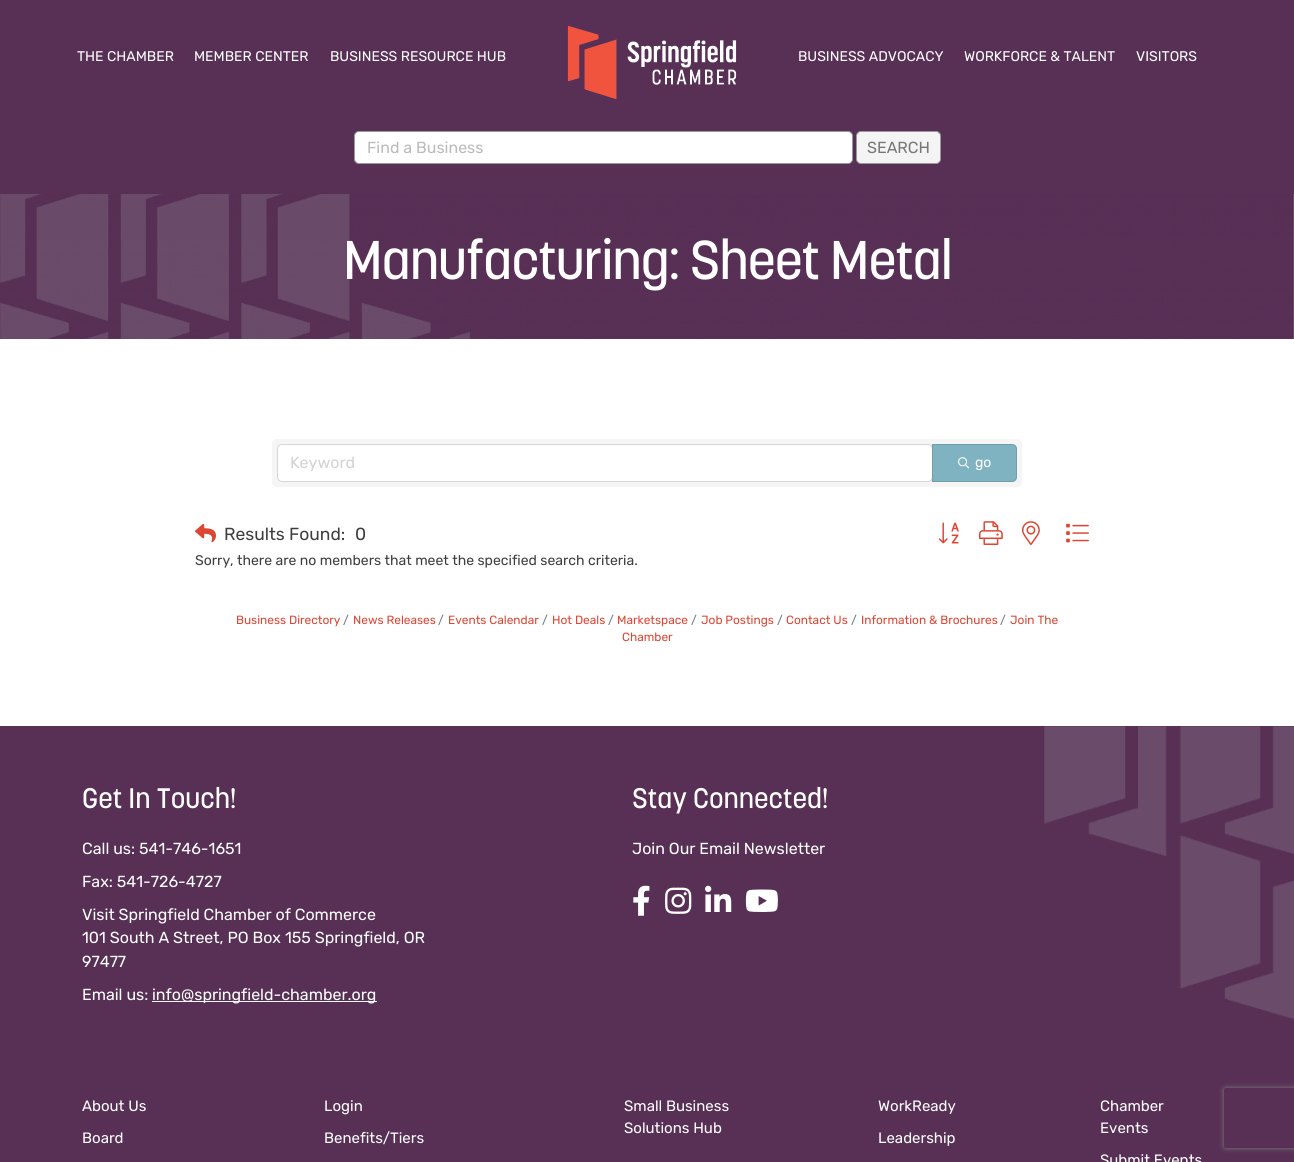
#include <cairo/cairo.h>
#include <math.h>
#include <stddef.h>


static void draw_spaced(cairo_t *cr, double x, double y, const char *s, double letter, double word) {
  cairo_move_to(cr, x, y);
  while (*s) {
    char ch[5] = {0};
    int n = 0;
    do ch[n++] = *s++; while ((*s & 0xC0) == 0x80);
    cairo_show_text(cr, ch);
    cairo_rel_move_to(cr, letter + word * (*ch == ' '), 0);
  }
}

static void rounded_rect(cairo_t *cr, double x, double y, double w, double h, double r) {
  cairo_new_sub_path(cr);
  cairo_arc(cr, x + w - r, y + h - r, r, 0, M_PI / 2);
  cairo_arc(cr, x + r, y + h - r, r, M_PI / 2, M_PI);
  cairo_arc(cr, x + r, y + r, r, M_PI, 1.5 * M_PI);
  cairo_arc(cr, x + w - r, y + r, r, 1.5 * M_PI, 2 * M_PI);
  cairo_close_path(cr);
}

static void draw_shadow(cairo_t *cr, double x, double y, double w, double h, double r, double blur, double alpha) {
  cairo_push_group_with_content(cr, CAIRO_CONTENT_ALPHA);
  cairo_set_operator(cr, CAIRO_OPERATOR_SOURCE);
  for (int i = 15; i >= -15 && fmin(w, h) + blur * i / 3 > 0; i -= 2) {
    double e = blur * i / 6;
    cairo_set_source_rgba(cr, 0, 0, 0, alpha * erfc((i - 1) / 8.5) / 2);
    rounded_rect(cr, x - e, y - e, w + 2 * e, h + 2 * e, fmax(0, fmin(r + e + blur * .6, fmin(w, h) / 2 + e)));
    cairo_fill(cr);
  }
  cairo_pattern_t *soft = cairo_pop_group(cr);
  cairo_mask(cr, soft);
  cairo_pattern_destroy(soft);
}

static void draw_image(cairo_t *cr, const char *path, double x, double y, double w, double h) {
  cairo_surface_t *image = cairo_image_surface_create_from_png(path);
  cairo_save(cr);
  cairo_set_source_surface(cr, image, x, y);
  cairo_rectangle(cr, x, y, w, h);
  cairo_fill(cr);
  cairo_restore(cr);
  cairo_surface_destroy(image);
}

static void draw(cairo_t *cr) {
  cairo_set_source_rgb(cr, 1, 1, 1);
  cairo_paint(cr);
  cairo_set_source_rgb(cr, 88 / 255.0, 48 / 255.0, 86 / 255.0);
  cairo_rectangle(cr, 0, 0, 1294, 194);
  cairo_fill(cr);
  draw_image(cr, "images/1.png", 567, 26, 170, 73);
  cairo_set_source_rgb(cr, 1, 1, 1);
  rounded_rect(cr, 354.5, 131.5, 498, 32, 4.5);
  cairo_fill_preserve(cr);
  cairo_set_source_rgb(cr, 153 / 255.0, 153 / 255.0, 153 / 255.0);
  cairo_set_line_width(cr, 1);
  cairo_stroke(cr);
  cairo_set_source_rgb(cr, 244 / 255.0, 244 / 255.0, 244 / 255.0);
  rounded_rect(cr, 856.5, 131.5, 84, 32, 4.5);
  cairo_fill_preserve(cr);
  cairo_set_source_rgb(cr, 153 / 255.0, 153 / 255.0, 153 / 255.0);
  cairo_stroke(cr);
  draw_image(cr, "images/2.png", 0, 194, 1294, 145);
  cairo_set_source_rgb(cr, 245 / 255.0, 245 / 255.0, 245 / 255.0);
  rounded_rect(cr, 272, 439, 750, 48, 5);
  cairo_fill(cr);
  cairo_set_source_rgb(cr, 1, 1, 1);
  rounded_rect(cr, 277.5, 444.5, 655, 37, 4.5);
  cairo_fill_preserve(cr);
  cairo_set_source_rgb(cr, 214 / 255.0, 214 / 255.0, 214 / 255.0);
  cairo_stroke(cr);
  cairo_set_source_rgb(cr, 127 / 255.0, 179 / 255.0, 193 / 255.0);
  cairo_new_path(cr);
  cairo_move_to(cr, 932, 444);
  cairo_line_to(cr, 1012, 444);
  cairo_curve_to(cr, 1015, 444, 1017, 446, 1017, 449);
  cairo_line_to(cr, 1017, 477);
  cairo_curve_to(cr, 1017, 480, 1015, 482, 1012, 482);
  cairo_line_to(cr, 932, 482);
  cairo_close_path(cr);
  cairo_fill(cr);
  cairo_new_path(cr);
  cairo_move_to(cr, 932.5, 444.5);
  cairo_line_to(cr, 1012, 444.5);
  cairo_curve_to(cr, 1014.5, 444.5, 1016.5, 446.5, 1016.5, 449);
  cairo_line_to(cr, 1016.5, 477);
  cairo_curve_to(cr, 1016.5, 479.5, 1014.5, 481.5, 1012, 481.5);
  cairo_line_to(cr, 932.5, 481.5);
  cairo_close_path(cr);
  cairo_set_source_rgba(cr, 0, 0, 0, 0.12);
  cairo_stroke(cr);
  draw_image(cr, "images/3.png", 958, 457, 12, 12);
  draw_image(cr, "images/4.png", 195, 524, 21, 19);
  draw_image(cr, "images/5.png", 938, 522, 21, 22);
  draw_image(cr, "images/6.png", 979, 521, 24, 24);
  draw_image(cr, "images/7.png", 1022, 521, 18, 24);
  draw_image(cr, "images/8.png", 1066, 523, 23, 20);
  draw_image(cr, "images/9.png", 0, 726, 1294, 436);
  cairo_set_source_rgb(cr, 1, 1, 1);
  cairo_rectangle(cr, 152, 1001, 225, 1);
  cairo_fill(cr);
  draw_image(cr, "images/10.png", 633, 885, 17, 31);
  draw_image(cr, "images/11.png", 665, 887, 27, 27);
  draw_image(cr, "images/12.png", 705, 885, 27, 27);
  draw_image(cr, "images/13.png", 745, 889, 33, 23);
  cairo_save(cr);
  cairo_set_fill_rule(cr, CAIRO_FILL_RULE_EVEN_ODD);
  cairo_new_path(cr);
  cairo_move_to(cr, 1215, 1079);
  cairo_line_to(cr, 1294, 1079);
  cairo_line_to(cr, 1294, 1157);
  cairo_line_to(cr, 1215, 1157);
  cairo_close_path(cr);
  cairo_move_to(cr, 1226, 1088);
  cairo_line_to(cr, 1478, 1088);
  cairo_curve_to(cr, 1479, 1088, 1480, 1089, 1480, 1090);
  cairo_line_to(cr, 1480, 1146);
  cairo_curve_to(cr, 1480, 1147, 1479, 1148, 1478, 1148);
  cairo_line_to(cr, 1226, 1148);
  cairo_curve_to(cr, 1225, 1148, 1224, 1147, 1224, 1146);
  cairo_line_to(cr, 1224, 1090);
  cairo_curve_to(cr, 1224, 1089, 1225, 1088, 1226, 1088);
  cairo_close_path(cr);
  cairo_clip(cr);
  cairo_set_source_rgb(cr, 128 / 255.0, 128 / 255.0, 128 / 255.0);
  draw_shadow(cr, 1224, 1088, 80, 60, 2, 2.5, 1);
  cairo_restore(cr);
  cairo_select_font_face(cr, "Rubik", CAIRO_FONT_SLANT_NORMAL, CAIRO_FONT_WEIGHT_NORMAL);
  cairo_set_font_size(cr, 14);
  cairo_move_to(cr, 77, 61);
  cairo_show_text(cr, "THE CHAMBER");
  cairo_move_to(cr, 194, 61);
  cairo_show_text(cr, "MEMBER CENTER");
  cairo_move_to(cr, 330, 61);
  cairo_show_text(cr, "BUSINESS RESOURCE HUB");
  cairo_move_to(cr, 798, 61);
  cairo_show_text(cr, "BUSINESS ADVOCACY");
  cairo_move_to(cr, 964, 61);
  cairo_show_text(cr, "WORKFORCE & TALENT");
  cairo_move_to(cr, 1136, 61);
  cairo_show_text(cr, "VISITORS");
  cairo_set_font_size(cr, 16);
  cairo_set_source_rgb(cr, 187 / 255.0, 187 / 255.0, 187 / 255.0);
  cairo_move_to(cr, 367, 153);
  cairo_show_text(cr, "Find a Business");
  cairo_set_source_rgb(cr, 119 / 255.0, 119 / 255.0, 119 / 255.0);
  cairo_move_to(cr, 867, 153);
  cairo_show_text(cr, "SEARCH");
  cairo_select_font_face(cr, "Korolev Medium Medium", CAIRO_FONT_SLANT_NORMAL, CAIRO_FONT_WEIGHT_NORMAL);
  cairo_set_font_size(cr, 54);
  cairo_set_source_rgb(cr, 1, 1, 1);
  draw_spaced(cr, 343, 279, "Manufacturing: Sheet Metal", -1, 0);
  cairo_select_font_face(cr, "Rubik", CAIRO_FONT_SLANT_NORMAL, CAIRO_FONT_WEIGHT_NORMAL);
  cairo_set_font_size(cr, 16);
  cairo_set_source_rgb(cr, 210 / 255.0, 210 / 255.0, 210 / 255.0);
  cairo_move_to(cr, 290, 468);
  cairo_show_text(cr, "Keyword");
  cairo_set_font_size(cr, 14);
  cairo_set_source_rgb(cr, 1, 1, 1);
  cairo_move_to(cr, 975, 467);
  cairo_show_text(cr, "go");
  cairo_set_font_size(cr, 17.5);
  cairo_set_source_rgb(cr, 63 / 255.0, 63 / 255.0, 63 / 255.0);
  cairo_move_to(cr, 224, 540);
  cairo_show_text(cr, "Results Found:");
  cairo_move_to(cr, 355, 540);
  cairo_show_text(cr, "0");
  cairo_set_font_size(cr, 14);
  cairo_move_to(cr, 195, 565);
  cairo_show_text(cr, "Sorry, there are no members that meet the specified search criteria.");
  cairo_set_font_size(cr, 11.9);
  cairo_set_source_rgb(cr, 108 / 255.0, 117 / 255.0, 125 / 255.0);
  cairo_move_to(cr, 343, 624);
  cairo_show_text(cr, "/");
  cairo_set_source_rgb(cr, 220 / 255.0, 70 / 255.0, 51 / 255.0);
  cairo_move_to(cr, 353, 624);
  cairo_show_text(cr, "News Releases");
  cairo_set_source_rgb(cr, 108 / 255.0, 117 / 255.0, 125 / 255.0);
  cairo_move_to(cr, 438, 624);
  cairo_show_text(cr, "/");
  cairo_set_source_rgb(cr, 220 / 255.0, 70 / 255.0, 51 / 255.0);
  cairo_move_to(cr, 448, 624);
  cairo_show_text(cr, "Events Calendar");
  cairo_set_source_rgb(cr, 108 / 255.0, 117 / 255.0, 125 / 255.0);
  cairo_move_to(cr, 542, 624);
  cairo_show_text(cr, "/");
  cairo_set_source_rgb(cr, 220 / 255.0, 70 / 255.0, 51 / 255.0);
  cairo_move_to(cr, 552, 624);
  cairo_show_text(cr, "Hot Deals");
  cairo_set_source_rgb(cr, 108 / 255.0, 117 / 255.0, 125 / 255.0);
  cairo_move_to(cr, 608, 624);
  cairo_show_text(cr, "/");
  cairo_set_source_rgb(cr, 220 / 255.0, 70 / 255.0, 51 / 255.0);
  cairo_move_to(cr, 617, 624);
  cairo_show_text(cr, "Marketspace");
  cairo_set_source_rgb(cr, 108 / 255.0, 117 / 255.0, 125 / 255.0);
  cairo_move_to(cr, 1000, 624);
  cairo_show_text(cr, "/");
  cairo_set_source_rgb(cr, 220 / 255.0, 70 / 255.0, 51 / 255.0);
  cairo_move_to(cr, 1010, 624);
  cairo_show_text(cr, "Join The");
  cairo_move_to(cr, 622, 641);
  cairo_show_text(cr, "Chamber");
  cairo_move_to(cr, 236, 624);
  cairo_show_text(cr, "Business Directory");
  cairo_set_source_rgb(cr, 108 / 255.0, 117 / 255.0, 125 / 255.0);
  cairo_move_to(cr, 691, 624);
  cairo_show_text(cr, "/");
  cairo_set_source_rgb(cr, 220 / 255.0, 70 / 255.0, 51 / 255.0);
  cairo_move_to(cr, 701, 624);
  cairo_show_text(cr, "Job Postings");
  cairo_set_source_rgb(cr, 108 / 255.0, 117 / 255.0, 125 / 255.0);
  cairo_move_to(cr, 777, 624);
  cairo_show_text(cr, "/");
  cairo_set_source_rgb(cr, 220 / 255.0, 70 / 255.0, 51 / 255.0);
  cairo_move_to(cr, 786, 624);
  cairo_show_text(cr, "Contact Us");
  cairo_set_source_rgb(cr, 108 / 255.0, 117 / 255.0, 125 / 255.0);
  cairo_move_to(cr, 851, 624);
  cairo_show_text(cr, "/");
  cairo_set_source_rgb(cr, 220 / 255.0, 70 / 255.0, 51 / 255.0);
  cairo_move_to(cr, 861, 624);
  cairo_show_text(cr, "Information & Brochures");
  cairo_select_font_face(cr, "Korolev Medium Medium", CAIRO_FONT_SLANT_NORMAL, CAIRO_FONT_WEIGHT_NORMAL);
  cairo_set_font_size(cr, 28);
  cairo_set_source_rgb(cr, 1, 1, 1);
  cairo_move_to(cr, 82, 808);
  cairo_show_text(cr, "Get In Touch!");
  cairo_select_font_face(cr, "Rubik", CAIRO_FONT_SLANT_NORMAL, CAIRO_FONT_WEIGHT_NORMAL);
  cairo_set_font_size(cr, 16);
  cairo_move_to(cr, 82, 854);
  cairo_show_text(cr, "Call us: 541-746-1651");
  cairo_move_to(cr, 82, 887);
  cairo_show_text(cr, "Fax: 541-726-4727");
  cairo_move_to(cr, 82, 920);
  cairo_show_text(cr, "Visit Springfield Chamber of Commerce");
  cairo_move_to(cr, 82, 943);
  cairo_show_text(cr, "101 South A Street, PO Box 155 Springfield, OR");
  cairo_move_to(cr, 82, 967);
  cairo_show_text(cr, "97477");
  cairo_move_to(cr, 82, 1000);
  cairo_show_text(cr, "Email us:");
  cairo_move_to(cr, 152, 1000);
  cairo_show_text(cr, "info@springfield-chamber.org");
  cairo_select_font_face(cr, "Korolev Medium Medium", CAIRO_FONT_SLANT_NORMAL, CAIRO_FONT_WEIGHT_NORMAL);
  cairo_set_font_size(cr, 28);
  cairo_move_to(cr, 632, 808);
  cairo_show_text(cr, "Stay Connected!");
  cairo_select_font_face(cr, "Rubik", CAIRO_FONT_SLANT_NORMAL, CAIRO_FONT_WEIGHT_NORMAL);
  cairo_set_font_size(cr, 16);
  cairo_move_to(cr, 632, 854);
  cairo_show_text(cr, "Join Our Email Newsletter");
  cairo_set_font_size(cr, 15);
  cairo_move_to(cr, 82, 1111);
  cairo_show_text(cr, "About Us");
  cairo_move_to(cr, 82, 1143);
  cairo_show_text(cr, "Board");
  cairo_move_to(cr, 324, 1111);
  cairo_show_text(cr, "Login");
  cairo_move_to(cr, 324, 1143);
  cairo_show_text(cr, "Benefits/Tiers");
  cairo_move_to(cr, 624, 1111);
  cairo_show_text(cr, "Small Business");
  cairo_move_to(cr, 624, 1133);
  cairo_show_text(cr, "Solutions Hub");
  cairo_move_to(cr, 878, 1111);
  cairo_show_text(cr, "WorkReady");
  cairo_move_to(cr, 878, 1143);
  cairo_show_text(cr, "Leadership");
  cairo_move_to(cr, 1100, 1111);
  cairo_show_text(cr, "Chamber");
  cairo_move_to(cr, 1100, 1133);
  cairo_show_text(cr, "Events");
  cairo_move_to(cr, 1100, 1165);
  cairo_show_text(cr, "Submit Events");
}

int main(void) {
  cairo_surface_t *surface = cairo_image_surface_create(CAIRO_FORMAT_RGB24, 1294, 1162);
  cairo_t *cr = cairo_create(surface);
  cairo_font_options_t *options = cairo_font_options_create();
  cairo_font_options_set_hint_metrics(options, CAIRO_HINT_METRICS_OFF);
  cairo_font_options_set_hint_style(options, CAIRO_HINT_STYLE_NONE);
  cairo_set_font_options(cr, options);
  cairo_set_miter_limit(cr, 4);
  draw(cr);
  cairo_surface_write_to_png(surface, "out.png");
  cairo_font_options_destroy(options);
  cairo_destroy(cr);
  cairo_surface_destroy(surface);
  return 0;
}
